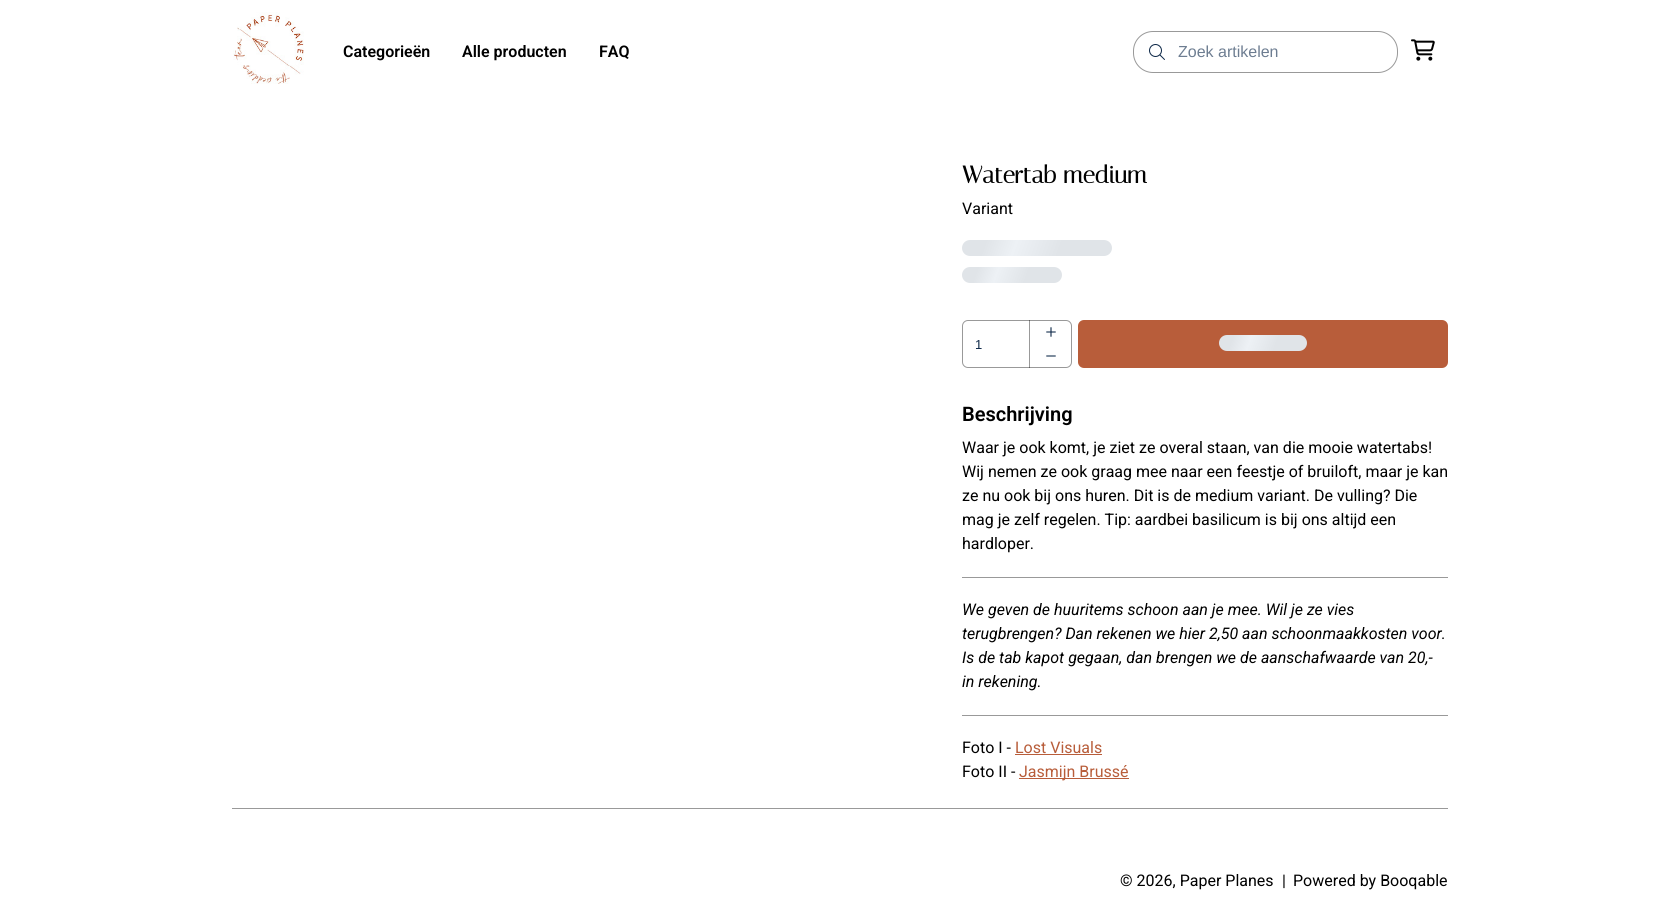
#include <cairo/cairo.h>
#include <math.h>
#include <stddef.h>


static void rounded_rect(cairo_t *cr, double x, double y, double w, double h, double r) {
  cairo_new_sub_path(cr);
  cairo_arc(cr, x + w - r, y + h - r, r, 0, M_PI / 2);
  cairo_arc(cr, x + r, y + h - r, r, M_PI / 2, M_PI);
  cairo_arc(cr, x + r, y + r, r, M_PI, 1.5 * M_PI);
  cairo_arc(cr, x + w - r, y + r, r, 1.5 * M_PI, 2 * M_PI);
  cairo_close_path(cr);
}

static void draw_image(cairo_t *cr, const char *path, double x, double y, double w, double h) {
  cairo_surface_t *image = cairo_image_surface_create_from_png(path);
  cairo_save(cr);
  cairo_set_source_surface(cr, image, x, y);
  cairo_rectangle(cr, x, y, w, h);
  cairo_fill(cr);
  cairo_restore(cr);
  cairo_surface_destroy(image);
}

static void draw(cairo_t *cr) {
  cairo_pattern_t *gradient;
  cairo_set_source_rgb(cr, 1, 1, 1);
  cairo_paint(cr);
  draw_image(cr, "images/1.png", 233, 12, 71, 72);
  rounded_rect(cr, 1133.5, 31.5, 264, 41, 19.5);
  cairo_set_source_rgb(cr, 153 / 255.0, 153 / 255.0, 153 / 255.0);
  cairo_set_line_width(cr, 1);
  cairo_stroke(cr);
  draw_image(cr, "images/2.png", 1149, 44, 16, 16);
  draw_image(cr, "images/3.png", 1411, 39, 24, 22);
  gradient = cairo_pattern_create_linear(977, 199, 1247, 297);
  cairo_pattern_add_color_stop_rgba(gradient, 0.08, 224 / 255.0, 228 / 255.0, 232 / 255.0, 1);
  cairo_pattern_add_color_stop_rgba(gradient, 0.18, 237 / 255.0, 241 / 255.0, 245 / 255.0, 1);
  cairo_pattern_add_color_stop_rgba(gradient, 0.33, 224 / 255.0, 228 / 255.0, 232 / 255.0, 1);
  cairo_set_source(cr, gradient);
  cairo_pattern_destroy(gradient);
  rounded_rect(cr, 962, 240, 150, 16, 8);
  cairo_fill(cr);
  gradient = cairo_pattern_create_linear(971, 242, 1153, 308);
  cairo_pattern_add_color_stop_rgba(gradient, 0.08, 224 / 255.0, 228 / 255.0, 232 / 255.0, 1);
  cairo_pattern_add_color_stop_rgba(gradient, 0.18, 237 / 255.0, 241 / 255.0, 245 / 255.0, 1);
  cairo_pattern_add_color_stop_rgba(gradient, 0.33, 224 / 255.0, 228 / 255.0, 232 / 255.0, 1);
  cairo_set_source(cr, gradient);
  cairo_pattern_destroy(gradient);
  rounded_rect(cr, 962, 267, 100, 16, 8);
  cairo_fill(cr);
  rounded_rect(cr, 962.5, 320.5, 109, 47, 5.5);
  cairo_set_source_rgb(cr, 153 / 255.0, 153 / 255.0, 153 / 255.0);
  cairo_stroke(cr);
  cairo_set_source_rgba(cr, 0, 0, 0, 0.4);
  cairo_rectangle(cr, 1029, 320, 1, 48);
  cairo_fill(cr);
  draw_image(cr, "images/4.png", 1046, 327, 10, 10);
  draw_image(cr, "images/5.png", 1046, 355, 10, 2);
  cairo_set_source_rgb(cr, 184 / 255.0, 93 / 255.0, 58 / 255.0);
  rounded_rect(cr, 1078, 320, 370, 48, 6);
  cairo_fill(cr);
  gradient = cairo_pattern_create_linear(1227, 314, 1387, 372);
  cairo_pattern_add_color_stop_rgba(gradient, 0.08, 224 / 255.0, 228 / 255.0, 232 / 255.0, 1);
  cairo_pattern_add_color_stop_rgba(gradient, 0.18, 237 / 255.0, 241 / 255.0, 245 / 255.0, 1);
  cairo_pattern_add_color_stop_rgba(gradient, 0.33, 224 / 255.0, 228 / 255.0, 232 / 255.0, 1);
  cairo_set_source(cr, gradient);
  cairo_pattern_destroy(gradient);
  rounded_rect(cr, 1219, 335, 88, 16, 8);
  cairo_fill(cr);
  cairo_set_source_rgb(cr, 153 / 255.0, 153 / 255.0, 153 / 255.0);
  cairo_rectangle(cr, 962, 577, 486, 1);
  cairo_fill(cr);
  cairo_rectangle(cr, 962, 715, 486, 1);
  cairo_fill(cr);
  cairo_set_source_rgb(cr, 184 / 255.0, 93 / 255.0, 58 / 255.0);
  cairo_rectangle(cr, 1015, 754, 87, 1);
  cairo_fill(cr);
  cairo_rectangle(cr, 1019, 778, 110, 1);
  cairo_fill(cr);
  cairo_set_source_rgb(cr, 153 / 255.0, 153 / 255.0, 153 / 255.0);
  cairo_rectangle(cr, 232, 808, 1216, 1);
  cairo_fill(cr);
  cairo_select_font_face(cr, "Roboto SemiBold", CAIRO_FONT_SLANT_NORMAL, CAIRO_FONT_WEIGHT_NORMAL);
  cairo_set_font_size(cr, 16);
  cairo_set_source_rgb(cr, 0, 0, 0);
  cairo_move_to(cr, 343, 57);
  cairo_show_text(cr, "Categorieën");
  cairo_move_to(cr, 462, 57);
  cairo_show_text(cr, "Alle producten");
  cairo_move_to(cr, 599, 57);
  cairo_show_text(cr, "FAQ");
  cairo_select_font_face(cr, "Liberation Sans", CAIRO_FONT_SLANT_NORMAL, CAIRO_FONT_WEIGHT_NORMAL);
  cairo_set_source_rgb(cr, 109 / 255.0, 125 / 255.0, 145 / 255.0);
  cairo_move_to(cr, 1178, 57);
  cairo_show_text(cr, "Zoek artikelen");
  cairo_select_font_face(cr, "Italiana", CAIRO_FONT_SLANT_NORMAL, CAIRO_FONT_WEIGHT_BOLD);
  cairo_set_font_size(cr, 24);
  cairo_set_source_rgb(cr, 0, 0, 0);
  cairo_move_to(cr, 962, 183);
  cairo_show_text(cr, "Watertab medium");
  cairo_select_font_face(cr, "Roboto", CAIRO_FONT_SLANT_NORMAL, CAIRO_FONT_WEIGHT_NORMAL);
  cairo_set_font_size(cr, 16);
  cairo_move_to(cr, 962, 214);
  cairo_show_text(cr, "Variant");
  cairo_select_font_face(cr, "Liberation Sans", CAIRO_FONT_SLANT_NORMAL, CAIRO_FONT_WEIGHT_NORMAL);
  cairo_set_font_size(cr, 13);
  cairo_set_source_rgb(cr, 12 / 255.0, 39 / 255.0, 71 / 255.0);
  cairo_move_to(cr, 975, 349);
  cairo_show_text(cr, "1");
  cairo_select_font_face(cr, "Roboto SemiBold", CAIRO_FONT_SLANT_NORMAL, CAIRO_FONT_WEIGHT_NORMAL);
  cairo_set_font_size(cr, 20);
  cairo_set_source_rgb(cr, 0, 0, 0);
  cairo_move_to(cr, 962, 421);
  cairo_show_text(cr, "Beschrijving");
  cairo_select_font_face(cr, "Roboto", CAIRO_FONT_SLANT_NORMAL, CAIRO_FONT_WEIGHT_NORMAL);
  cairo_set_font_size(cr, 16);
  cairo_move_to(cr, 962, 453);
  cairo_show_text(cr, "Waar je ook komt, je ziet ze overal staan, van die mooie watertabs!");
  cairo_move_to(cr, 962, 477);
  cairo_show_text(cr, "Wij nemen ze ook graag mee naar een feestje of bruiloft, maar je kan");
  cairo_move_to(cr, 962, 501);
  cairo_show_text(cr, "ze nu ook bij ons huren. Dit is de medium variant. De vulling? Die");
  cairo_move_to(cr, 962, 525);
  cairo_show_text(cr, "mag je zelf regelen. Tip: aardbei basilicum is bij ons altijd een");
  cairo_move_to(cr, 962, 549);
  cairo_show_text(cr, "hardloper.");
  cairo_select_font_face(cr, "Roboto", CAIRO_FONT_SLANT_ITALIC, CAIRO_FONT_WEIGHT_NORMAL);
  cairo_move_to(cr, 962, 615);
  cairo_show_text(cr, "We geven de huuritems schoon aan je mee. Wil je ze vies");
  cairo_move_to(cr, 962, 639);
  cairo_show_text(cr, "terugbrengen? Dan rekenen we hier 2,50 aan schoonmaakkosten voor.");
  cairo_move_to(cr, 962, 663);
  cairo_show_text(cr, "Is de tab kapot gegaan, dan brengen we de aanschafwaarde van 20,-");
  cairo_move_to(cr, 962, 687);
  cairo_show_text(cr, "in rekening.");
  cairo_select_font_face(cr, "Roboto", CAIRO_FONT_SLANT_NORMAL, CAIRO_FONT_WEIGHT_NORMAL);
  cairo_move_to(cr, 962, 753);
  cairo_show_text(cr, "Foto I -");
  cairo_set_source_rgb(cr, 184 / 255.0, 93 / 255.0, 58 / 255.0);
  cairo_move_to(cr, 1015, 753);
  cairo_show_text(cr, "Lost Visuals");
  cairo_set_source_rgb(cr, 0, 0, 0);
  cairo_move_to(cr, 962, 777);
  cairo_show_text(cr, "Foto II -");
  cairo_set_source_rgb(cr, 184 / 255.0, 93 / 255.0, 58 / 255.0);
  cairo_move_to(cr, 1019, 777);
  cairo_show_text(cr, "Jasmijn Brussé");
  cairo_set_source_rgb(cr, 0, 0, 0);
  cairo_move_to(cr, 1120, 886);
  cairo_show_text(cr, "© 2026, Paper Planes");
  cairo_move_to(cr, 1282, 886);
  cairo_show_text(cr, "|");
  cairo_move_to(cr, 1293, 886);
  cairo_show_text(cr, "Powered by Booqable");
}

int main(void) {
  cairo_surface_t *surface = cairo_image_surface_create(CAIRO_FORMAT_RGB24, 1680, 905);
  cairo_t *cr = cairo_create(surface);
  cairo_font_options_t *options = cairo_font_options_create();
  cairo_font_options_set_hint_metrics(options, CAIRO_HINT_METRICS_OFF);
  cairo_font_options_set_hint_style(options, CAIRO_HINT_STYLE_NONE);
  cairo_set_font_options(cr, options);
  cairo_set_miter_limit(cr, 4);
  draw(cr);
  cairo_surface_write_to_png(surface, "out.png");
  cairo_font_options_destroy(options);
  cairo_destroy(cr);
  cairo_surface_destroy(surface);
  return 0;
}
